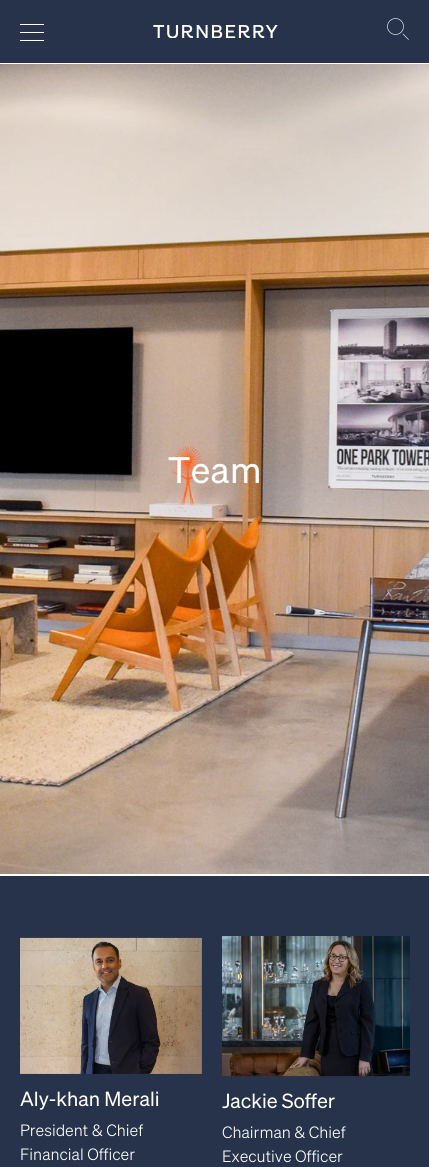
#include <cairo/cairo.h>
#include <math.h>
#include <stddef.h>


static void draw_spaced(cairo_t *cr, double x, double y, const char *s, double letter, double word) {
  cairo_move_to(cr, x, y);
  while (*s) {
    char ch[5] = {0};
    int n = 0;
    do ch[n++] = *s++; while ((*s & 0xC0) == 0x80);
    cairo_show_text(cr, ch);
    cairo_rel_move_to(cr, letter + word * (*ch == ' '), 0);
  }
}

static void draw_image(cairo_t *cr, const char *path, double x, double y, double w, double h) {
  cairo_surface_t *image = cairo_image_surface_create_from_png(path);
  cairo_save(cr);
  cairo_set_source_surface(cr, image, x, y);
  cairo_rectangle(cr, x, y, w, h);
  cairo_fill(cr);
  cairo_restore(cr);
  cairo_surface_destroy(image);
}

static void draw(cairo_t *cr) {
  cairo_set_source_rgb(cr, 39 / 255.0, 51 / 255.0, 74 / 255.0);
  cairo_paint(cr);
  cairo_set_source_rgb(cr, 1, 1, 1);
  cairo_rectangle(cr, 0, 63, 429, 1);
  cairo_fill(cr);
  cairo_rectangle(cr, 20, 24, 24, 1);
  cairo_fill(cr);
  cairo_rectangle(cr, 20, 32, 24, 1);
  cairo_fill(cr);
  cairo_rectangle(cr, 20, 40, 24, 1);
  cairo_fill(cr);
  draw_image(cr, "images/1.png", 153, 25, 125, 13);
  cairo_arc(cr, 395.5, 26.5, 8, 0, 2 * M_PI);
  cairo_set_line_width(cr, 0.6);
  cairo_stroke(cr);
  cairo_new_path(cr);
  cairo_move_to(cr, 408.5, 39.5);
  cairo_line_to(cr, 403, 34);
  cairo_set_line_cap(cr, CAIRO_LINE_CAP_ROUND);
  cairo_stroke(cr);
  cairo_rectangle(cr, 0, 874, 429, 2);
  cairo_fill(cr);
  draw_image(cr, "images/2.png", 0, 64, 429, 810);
  draw_image(cr, "images/3.png", 20, 937, 182, 137);
  draw_image(cr, "images/4.png", 222, 936, 188, 141);
  cairo_select_font_face(cr, "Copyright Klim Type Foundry", CAIRO_FONT_SLANT_NORMAL, CAIRO_FONT_WEIGHT_NORMAL);
  cairo_set_font_size(cr, 36);
  draw_spaced(cr, 168, 483, "Team", 0.5, 0);
  cairo_set_font_size(cr, 20);
  cairo_move_to(cr, 20, 1106);
  cairo_show_text(cr, "Aly-khan Merali");
  cairo_select_font_face(cr, "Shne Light", CAIRO_FONT_SLANT_NORMAL, CAIRO_FONT_WEIGHT_NORMAL);
  cairo_set_font_size(cr, 16);
  cairo_move_to(cr, 20, 1136);
  cairo_show_text(cr, "President & Chief");
  cairo_move_to(cr, 20, 1160);
  cairo_show_text(cr, "Financial Officer");
  cairo_select_font_face(cr, "Copyright Klim Type Foundry", CAIRO_FONT_SLANT_NORMAL, CAIRO_FONT_WEIGHT_NORMAL);
  cairo_set_font_size(cr, 20);
  cairo_move_to(cr, 222, 1108);
  cairo_show_text(cr, "Jackie Soffer");
  cairo_select_font_face(cr, "Shne Light", CAIRO_FONT_SLANT_NORMAL, CAIRO_FONT_WEIGHT_NORMAL);
  cairo_set_font_size(cr, 16);
  cairo_move_to(cr, 222, 1138);
  cairo_show_text(cr, "Chairman & Chief");
  cairo_move_to(cr, 222, 1162);
  cairo_show_text(cr, "Executive Officer");
}

int main(void) {
  cairo_surface_t *surface = cairo_image_surface_create(CAIRO_FORMAT_RGB24, 429, 1167);
  cairo_t *cr = cairo_create(surface);
  cairo_font_options_t *options = cairo_font_options_create();
  cairo_font_options_set_hint_metrics(options, CAIRO_HINT_METRICS_OFF);
  cairo_font_options_set_hint_style(options, CAIRO_HINT_STYLE_NONE);
  cairo_set_font_options(cr, options);
  cairo_set_miter_limit(cr, 4);
  draw(cr);
  cairo_surface_write_to_png(surface, "out.png");
  cairo_font_options_destroy(options);
  cairo_destroy(cr);
  cairo_surface_destroy(surface);
  return 0;
}
